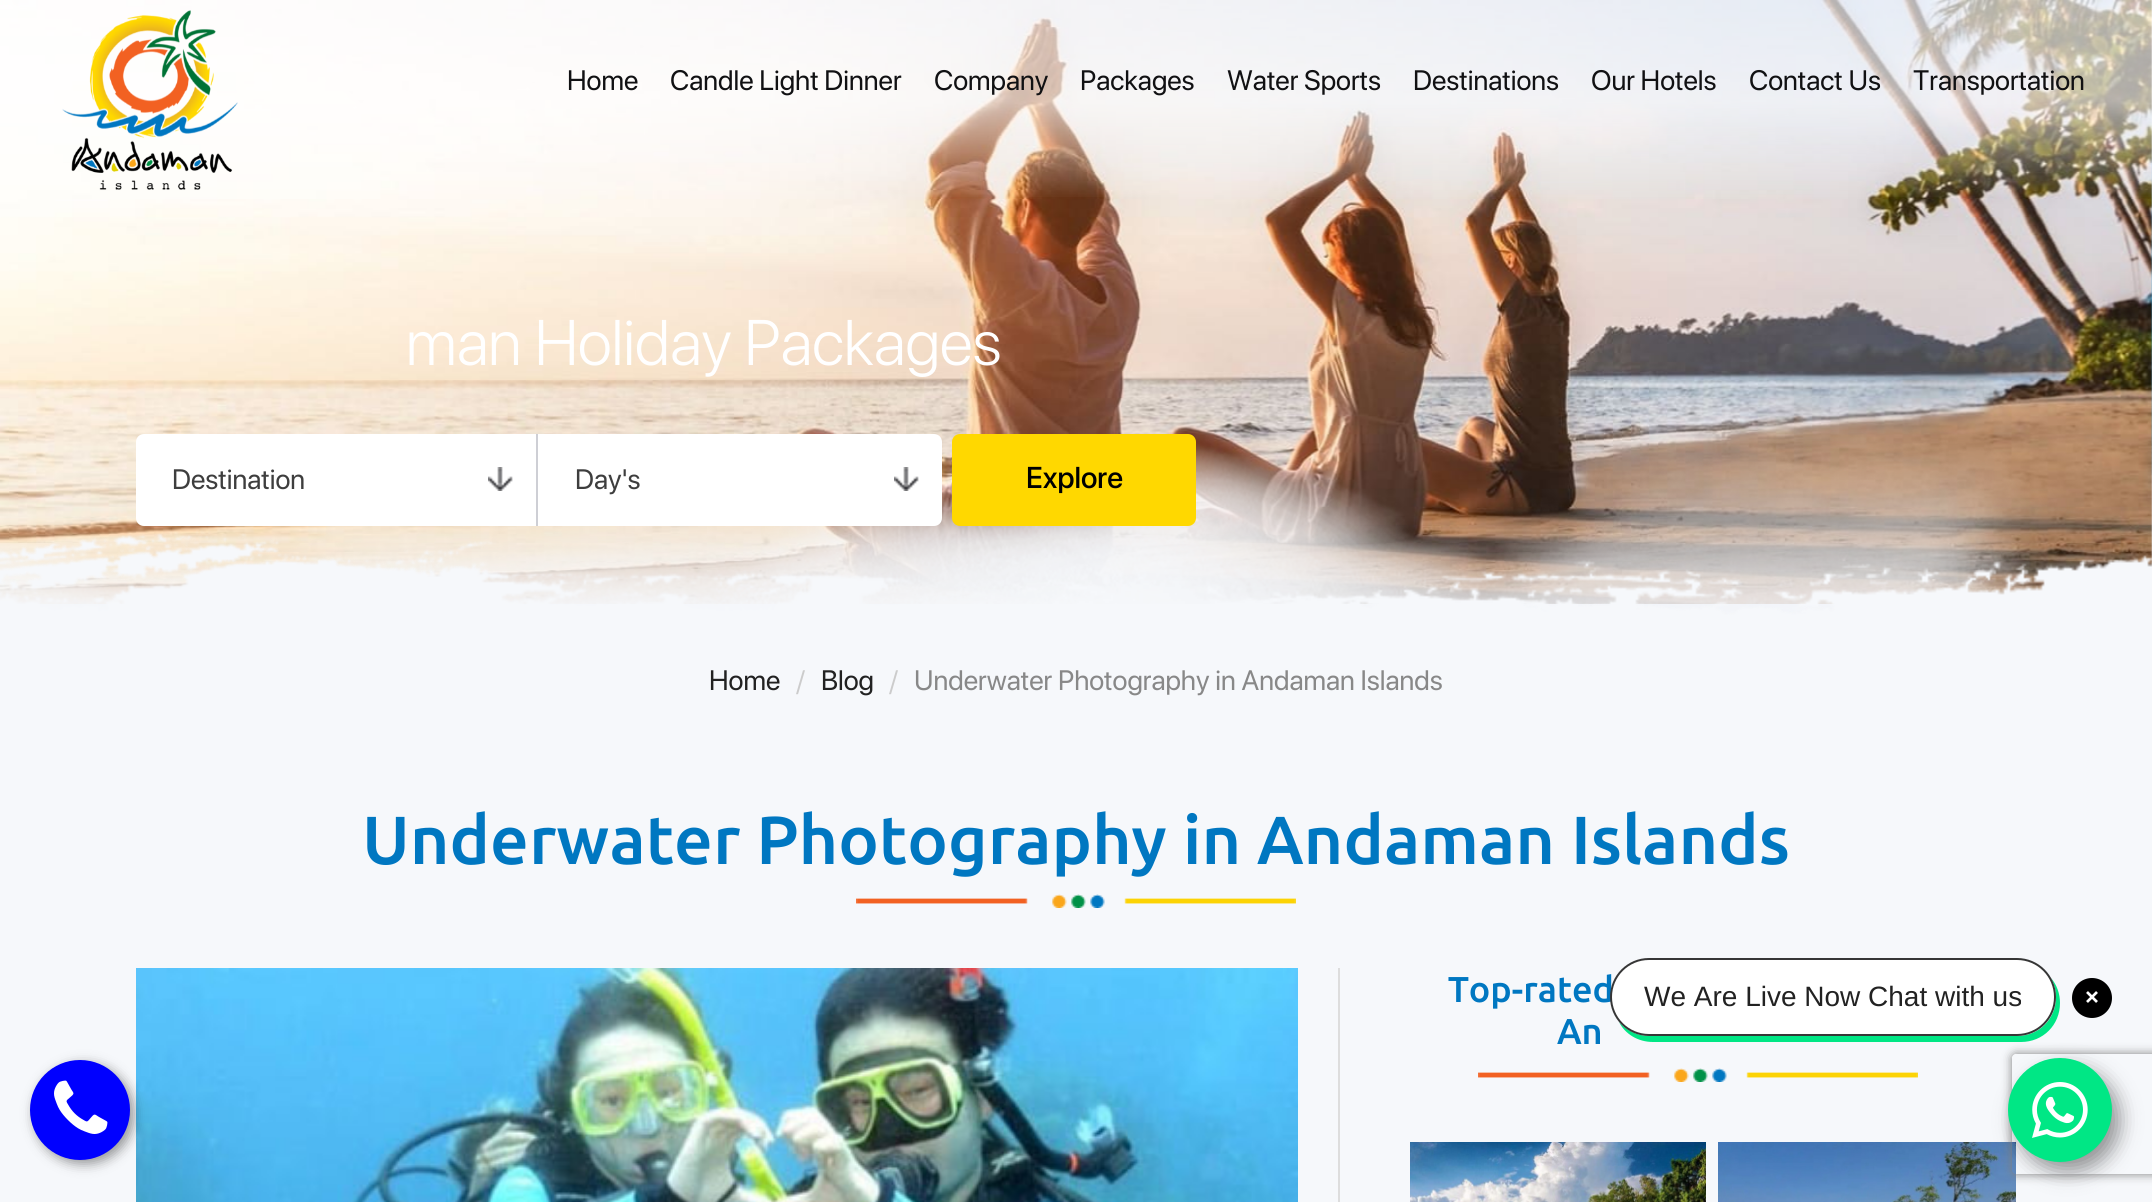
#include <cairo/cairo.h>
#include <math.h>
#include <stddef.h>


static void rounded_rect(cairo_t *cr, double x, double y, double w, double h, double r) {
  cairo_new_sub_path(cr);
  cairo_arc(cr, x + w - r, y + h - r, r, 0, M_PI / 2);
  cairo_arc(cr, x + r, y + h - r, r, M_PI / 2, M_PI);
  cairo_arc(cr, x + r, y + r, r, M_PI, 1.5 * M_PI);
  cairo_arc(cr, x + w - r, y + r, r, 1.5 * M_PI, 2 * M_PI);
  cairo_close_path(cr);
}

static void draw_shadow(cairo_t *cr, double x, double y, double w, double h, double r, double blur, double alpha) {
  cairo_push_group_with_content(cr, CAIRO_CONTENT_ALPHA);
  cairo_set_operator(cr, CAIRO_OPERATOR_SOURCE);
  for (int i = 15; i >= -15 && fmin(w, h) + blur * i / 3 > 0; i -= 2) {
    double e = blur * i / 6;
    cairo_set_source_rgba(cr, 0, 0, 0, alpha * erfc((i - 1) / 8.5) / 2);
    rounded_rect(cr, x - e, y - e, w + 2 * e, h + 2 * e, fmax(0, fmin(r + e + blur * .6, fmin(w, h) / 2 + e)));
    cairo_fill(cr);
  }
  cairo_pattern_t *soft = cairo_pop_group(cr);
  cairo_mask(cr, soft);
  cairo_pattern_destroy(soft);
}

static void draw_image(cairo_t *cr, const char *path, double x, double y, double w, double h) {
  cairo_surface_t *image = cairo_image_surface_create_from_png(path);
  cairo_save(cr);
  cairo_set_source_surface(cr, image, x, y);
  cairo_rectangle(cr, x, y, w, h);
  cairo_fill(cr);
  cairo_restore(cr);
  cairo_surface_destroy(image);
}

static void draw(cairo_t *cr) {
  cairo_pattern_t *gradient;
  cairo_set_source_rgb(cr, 246 / 255.0, 248 / 255.0, 251 / 255.0);
  cairo_paint(cr);
  draw_image(cr, "images/2.png", 18, 0, 2134, 628);
  draw_image(cr, "images/3.png", 0, 0, 2152, 604);
  gradient = cairo_pattern_create_linear(1076, 0, 1076, 200);
  cairo_pattern_add_color_stop_rgba(gradient, 0, 1, 1, 1, 0.64);
  cairo_pattern_add_color_stop_rgba(gradient, 0.51, 1, 1, 1, 0.64);
  cairo_pattern_add_color_stop_rgba(gradient, 1, 1, 1, 1, 0);
  cairo_set_source(cr, gradient);
  cairo_pattern_destroy(gradient);
  cairo_rectangle(cr, 0, 0, 2152, 197);
  cairo_fill(cr);
  draw_image(cr, "images/1.png", 62, 10, 176, 180);
  draw_image(cr, "images/4.png", 0, 418, 2152, 222);
  cairo_set_source_rgb(cr, 1, 1, 1);
  cairo_new_path(cr);
  cairo_move_to(cr, 144, 434);
  cairo_line_to(cr, 538, 434);
  cairo_line_to(cr, 538, 526);
  cairo_line_to(cr, 144, 526);
  cairo_curve_to(cr, 139.5, 526, 136, 522.5, 136, 518);
  cairo_line_to(cr, 136, 442);
  cairo_curve_to(cr, 136, 437.5, 139.5, 434, 144, 434);
  cairo_close_path(cr);
  cairo_fill(cr);
  draw_image(cr, "images/5.png", 488, 467, 25, 24);
  cairo_set_source_rgb(cr, 206 / 255.0, 207 / 255.0, 213 / 255.0);
  cairo_rectangle(cr, 536, 434, 2, 92);
  cairo_fill(cr);
  cairo_set_source_rgb(cr, 1, 1, 1);
  cairo_new_path(cr);
  cairo_move_to(cr, 538, 434);
  cairo_line_to(cr, 934, 434);
  cairo_curve_to(cr, 938.5, 434, 942, 437.5, 942, 442);
  cairo_line_to(cr, 942, 518);
  cairo_curve_to(cr, 942, 522.5, 938.5, 526, 934, 526);
  cairo_line_to(cr, 538, 526);
  cairo_close_path(cr);
  cairo_fill(cr);
  draw_image(cr, "images/5.png", 894, 467, 25, 24);
  cairo_set_source_rgb(cr, 1, 216 / 255.0, 0);
  rounded_rect(cr, 952, 434, 244, 92, 8);
  cairo_fill(cr);
  draw_image(cr, "images/6.png", 856, 894, 440, 14);
  cairo_set_source_rgb(cr, 221 / 255.0, 221 / 255.0, 221 / 255.0);
  cairo_rectangle(cr, 1338, 968, 2, 234);
  cairo_fill(cr);
  draw_image(cr, "images/7.png", 136, 968, 1162, 234);
  draw_image(cr, "images/8.png", 1478, 1068, 440, 14);
  draw_image(cr, "images/9.png", 1410, 1142, 296, 60);
  draw_image(cr, "images/10.png", 1718, 1142, 298, 60);
  cairo_set_source_rgb(cr, 0, 0, 0);
  draw_shadow(cr, 2016, 1068, 104, 104, 52, 10, 0.4);
  cairo_save(cr);
  cairo_set_fill_rule(cr, CAIRO_FILL_RULE_EVEN_ODD);
  cairo_new_path(cr);
  cairo_move_to(cr, 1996, 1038);
  cairo_line_to(cr, 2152, 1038);
  cairo_line_to(cr, 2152, 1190);
  cairo_line_to(cr, 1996, 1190);
  cairo_close_path(cr);
  cairo_move_to(cr, 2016, 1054);
  cairo_line_to(cr, 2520, 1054);
  cairo_curve_to(cr, 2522, 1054, 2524, 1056, 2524, 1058);
  cairo_line_to(cr, 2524, 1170);
  cairo_curve_to(cr, 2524, 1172, 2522, 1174, 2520, 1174);
  cairo_line_to(cr, 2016, 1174);
  cairo_curve_to(cr, 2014, 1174, 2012, 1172, 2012, 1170);
  cairo_line_to(cr, 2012, 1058);
  cairo_curve_to(cr, 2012, 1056, 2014, 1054, 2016, 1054);
  cairo_close_path(cr);
  cairo_clip(cr);
  cairo_set_source_rgb(cr, 128 / 255.0, 128 / 255.0, 128 / 255.0);
  draw_shadow(cr, 2012, 1054, 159, 120, 4, 5, 1);
  cairo_restore(cr);
  cairo_set_source_rgb(cr, 0, 231 / 255.0, 133 / 255.0);
  cairo_new_path(cr);
  cairo_move_to(cr, 1619, 1022);
  cairo_curve_to(cr, 1625, 1034, 1638, 1042, 1653, 1042);
  cairo_line_to(cr, 2021, 1042);
  cairo_curve_to(cr, 2043, 1042, 2060, 1025, 2060, 1003);
  cairo_curve_to(cr, 2060, 994, 2057, 985, 2051, 978);
  cairo_curve_to(cr, 2054, 984, 2056, 990, 2056, 997);
  cairo_curve_to(cr, 2056, 1019, 2039, 1036, 2017, 1036);
  cairo_line_to(cr, 1649, 1036);
  cairo_curve_to(cr, 1637, 1036, 1626, 1030, 1619, 1022);
  cairo_close_path(cr);
  cairo_fill(cr);
  cairo_set_source_rgb(cr, 0, 0, 0);
  cairo_arc(cr, 2092, 998, 20, 0, 2 * M_PI);
  cairo_fill(cr);
  cairo_new_path(cr);
  cairo_move_to(cr, 2087, 992);
  cairo_line_to(cr, 2097, 1002);
  cairo_move_to(cr, 2087, 1002);
  cairo_line_to(cr, 2097, 992);
  cairo_set_source_rgb(cr, 1, 1, 1);
  cairo_set_line_width(cr, 2.7);
  cairo_stroke(cr);
  cairo_set_source_rgb(cr, 0, 231 / 255.0, 133 / 255.0);
  cairo_arc(cr, 2060, 1110, 52, 0, 2 * M_PI);
  cairo_fill(cr);
  draw_image(cr, "images/11.png", 2032, 1082, 56, 56);
  cairo_set_source_rgb(cr, 0, 0, 0);
  draw_shadow(cr, 34, 1064, 100, 100, 50, 6, 0.4);
  cairo_set_source_rgb(cr, 0, 0, 1);
  cairo_arc(cr, 80, 1110, 50, 0, 2 * M_PI);
  cairo_fill(cr);
  draw_image(cr, "images/12.png", 54, 1080, 54, 54);
  cairo_select_font_face(cr, "SF Pro Display", CAIRO_FONT_SLANT_NORMAL, CAIRO_FONT_WEIGHT_NORMAL);
  cairo_set_font_size(cr, 28);
  cairo_set_source_rgb(cr, 17 / 255.0, 17 / 255.0, 19 / 255.0);
  cairo_move_to(cr, 567, 90);
  cairo_show_text(cr, "Home");
  cairo_move_to(cr, 670, 90);
  cairo_show_text(cr, "Candle Light Dinner");
  cairo_move_to(cr, 934, 90);
  cairo_show_text(cr, "Company");
  cairo_move_to(cr, 1080, 90);
  cairo_show_text(cr, "Packages");
  cairo_move_to(cr, 1227, 90);
  cairo_show_text(cr, "Water Sports");
  cairo_move_to(cr, 1413, 90);
  cairo_show_text(cr, "Destinations");
  cairo_move_to(cr, 1591, 90);
  cairo_show_text(cr, "Our Hotels");
  cairo_move_to(cr, 1749, 90);
  cairo_show_text(cr, "Contact Us");
  cairo_move_to(cr, 1913, 90);
  cairo_show_text(cr, "Transportation");
  cairo_select_font_face(cr, "SF Pro Display Light", CAIRO_FONT_SLANT_NORMAL, CAIRO_FONT_WEIGHT_NORMAL);
  cairo_set_font_size(cr, 64);
  cairo_set_source_rgb(cr, 1, 1, 1);
  cairo_move_to(cr, 406, 365);
  cairo_show_text(cr, "man Holiday Packages");
  cairo_select_font_face(cr, "SF Pro Display", CAIRO_FONT_SLANT_NORMAL, CAIRO_FONT_WEIGHT_NORMAL);
  cairo_set_font_size(cr, 28);
  cairo_set_source_rgb(cr, 62 / 255.0, 62 / 255.0, 62 / 255.0);
  cairo_move_to(cr, 172, 489);
  cairo_show_text(cr, "Destination");
  cairo_move_to(cr, 575, 489);
  cairo_show_text(cr, "Day's");
  cairo_select_font_face(cr, "SF Pro Display Medium", CAIRO_FONT_SLANT_NORMAL, CAIRO_FONT_WEIGHT_NORMAL);
  cairo_set_font_size(cr, 30);
  cairo_set_source_rgb(cr, 0, 0, 0);
  cairo_move_to(cr, 1026, 488);
  cairo_show_text(cr, "Explore");
  cairo_select_font_face(cr, "SF Pro Display", CAIRO_FONT_SLANT_NORMAL, CAIRO_FONT_WEIGHT_NORMAL);
  cairo_set_font_size(cr, 28);
  cairo_set_source_rgb(cr, 34 / 255.0, 34 / 255.0, 34 / 255.0);
  cairo_move_to(cr, 709, 690);
  cairo_show_text(cr, "Home");
  cairo_set_source_rgb(cr, 204 / 255.0, 204 / 255.0, 204 / 255.0);
  cairo_move_to(cr, 796, 690);
  cairo_show_text(cr, "/");
  cairo_set_source_rgb(cr, 34 / 255.0, 34 / 255.0, 34 / 255.0);
  cairo_move_to(cr, 821, 690);
  cairo_show_text(cr, "Blog");
  cairo_set_source_rgb(cr, 204 / 255.0, 204 / 255.0, 204 / 255.0);
  cairo_move_to(cr, 889, 690);
  cairo_show_text(cr, "/");
  cairo_set_source_rgb(cr, 136 / 255.0, 136 / 255.0, 136 / 255.0);
  cairo_move_to(cr, 914, 690);
  cairo_show_text(cr, "Underwater Photography in Andaman Islands");
  cairo_select_font_face(cr, "Ubuntu Medium", CAIRO_FONT_SLANT_NORMAL, CAIRO_FONT_WEIGHT_NORMAL);
  cairo_set_font_size(cr, 68);
  cairo_set_source_rgb(cr, 0, 119 / 255.0, 193 / 255.0);
  cairo_move_to(cr, 362, 864);
  cairo_show_text(cr, "Underwater Photography in Andaman Islands");
  cairo_set_font_size(cr, 36);
  cairo_move_to(cr, 1448, 1002);
  cairo_show_text(cr, "Top-rated");
  cairo_move_to(cr, 1557, 1044);
  cairo_show_text(cr, "An");
  cairo_set_source_rgb(cr, 1, 1, 1);
  rounded_rect(cr, 1611, 959, 444, 76, 38);
  cairo_fill_preserve(cr);
  cairo_set_source_rgb(cr, 54 / 255.0, 54 / 255.0, 54 / 255.0);
  cairo_set_line_width(cr, 2);
  cairo_stroke(cr);
  cairo_select_font_face(cr, "Liberation Sans", CAIRO_FONT_SLANT_NORMAL, CAIRO_FONT_WEIGHT_NORMAL);
  cairo_set_font_size(cr, 28);
  cairo_set_source_rgb(cr, 34 / 255.0, 34 / 255.0, 34 / 255.0);
  cairo_move_to(cr, 1644, 1006);
  cairo_show_text(cr, "We Are Live Now Chat with us");
}

int main(void) {
  cairo_surface_t *surface = cairo_image_surface_create(CAIRO_FORMAT_RGB24, 2152, 1202);
  cairo_t *cr = cairo_create(surface);
  cairo_font_options_t *options = cairo_font_options_create();
  cairo_font_options_set_hint_metrics(options, CAIRO_HINT_METRICS_OFF);
  cairo_font_options_set_hint_style(options, CAIRO_HINT_STYLE_NONE);
  cairo_set_font_options(cr, options);
  cairo_set_miter_limit(cr, 4);
  draw(cr);
  cairo_surface_write_to_png(surface, "out.png");
  cairo_font_options_destroy(options);
  cairo_destroy(cr);
  cairo_surface_destroy(surface);
  return 0;
}
